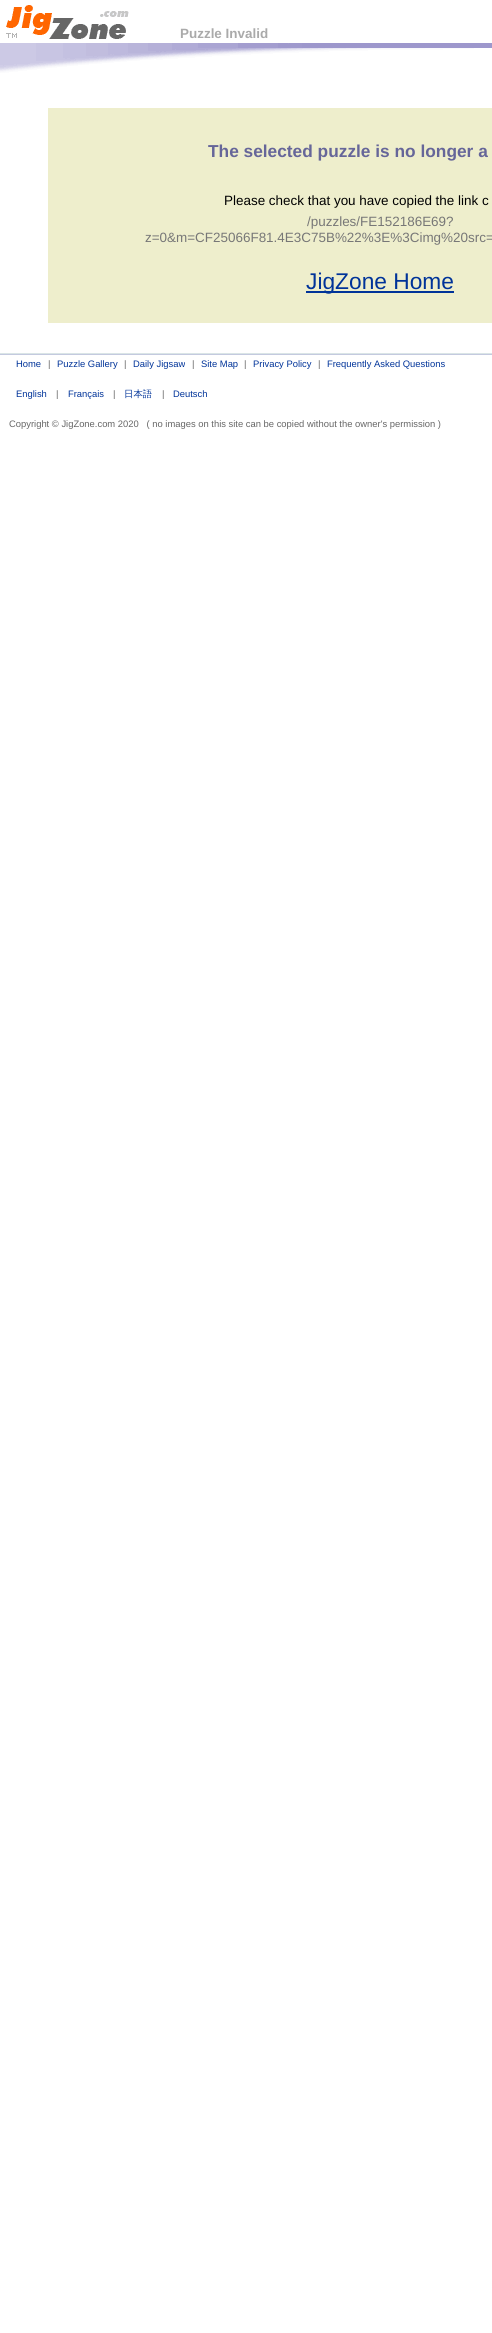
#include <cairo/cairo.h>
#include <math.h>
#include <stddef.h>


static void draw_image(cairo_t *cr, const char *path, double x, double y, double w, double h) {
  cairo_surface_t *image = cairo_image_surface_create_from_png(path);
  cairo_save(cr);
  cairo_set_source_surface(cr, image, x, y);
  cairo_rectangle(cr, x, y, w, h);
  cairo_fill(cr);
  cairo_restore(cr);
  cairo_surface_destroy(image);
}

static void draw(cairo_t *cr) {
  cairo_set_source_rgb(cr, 1, 1, 1);
  cairo_paint(cr);
  draw_image(cr, "images/1.png", 0, 5, 330, 68);
  draw_image(cr, "images/2.png", 330, 43, 162, 8);
  cairo_set_source_rgb(cr, 238 / 255.0, 238 / 255.0, 204 / 255.0);
  cairo_rectangle(cr, 48, 108, 444, 215);
  cairo_fill(cr);
  cairo_set_source_rgb(cr, 0, 51 / 255.0, 153 / 255.0);
  cairo_rectangle(cr, 306, 291, 148, 2);
  cairo_fill(cr);
  draw_image(cr, "images/3.png", 0, 353, 492, 2);
  cairo_select_font_face(cr, "Liberation Sans", CAIRO_FONT_SLANT_NORMAL, CAIRO_FONT_WEIGHT_BOLD);
  cairo_set_font_size(cr, 13.45);
  cairo_set_source_rgb(cr, 170 / 255.0, 170 / 255.0, 170 / 255.0);
  cairo_move_to(cr, 180, 38);
  cairo_show_text(cr, "Puzzle Invalid");
  cairo_set_font_size(cr, 17.3);
  cairo_set_source_rgb(cr, 102 / 255.0, 102 / 255.0, 153 / 255.0);
  cairo_move_to(cr, 208, 157);
  cairo_show_text(cr, "The selected puzzle is no longer a");
  cairo_select_font_face(cr, "Liberation Sans", CAIRO_FONT_SLANT_NORMAL, CAIRO_FONT_WEIGHT_NORMAL);
  cairo_set_font_size(cr, 13.45);
  cairo_set_source_rgb(cr, 0, 0, 0);
  cairo_move_to(cr, 224, 205);
  cairo_show_text(cr, "Please check that you have copied the link c");
  cairo_set_source_rgb(cr, 119 / 255.0, 119 / 255.0, 119 / 255.0);
  cairo_move_to(cr, 307, 226);
  cairo_show_text(cr, "/puzzles/FE152186E69?");
  cairo_move_to(cr, 145, 242);
  cairo_show_text(cr, "z=0&m=CF25066F81.4E3C75B%22%3E%3Cimg%20src=");
  cairo_set_font_size(cr, 22.75);
  cairo_set_source_rgb(cr, 0, 51 / 255.0, 153 / 255.0);
  cairo_move_to(cr, 306, 289);
  cairo_show_text(cr, "JigZone Home");
  cairo_set_font_size(cr, 9.4);
  cairo_move_to(cr, 16, 367);
  cairo_show_text(cr, "Home");
  cairo_set_source_rgb(cr, 102 / 255.0, 102 / 255.0, 102 / 255.0);
  cairo_move_to(cr, 48, 367);
  cairo_show_text(cr, "|");
  cairo_set_source_rgb(cr, 0, 51 / 255.0, 153 / 255.0);
  cairo_move_to(cr, 57, 367);
  cairo_show_text(cr, "Puzzle Gallery");
  cairo_set_source_rgb(cr, 102 / 255.0, 102 / 255.0, 102 / 255.0);
  cairo_move_to(cr, 124, 367);
  cairo_show_text(cr, "|");
  cairo_set_source_rgb(cr, 0, 51 / 255.0, 153 / 255.0);
  cairo_move_to(cr, 133, 367);
  cairo_show_text(cr, "Daily Jigsaw");
  cairo_set_source_rgb(cr, 102 / 255.0, 102 / 255.0, 102 / 255.0);
  cairo_move_to(cr, 192, 367);
  cairo_show_text(cr, "|");
  cairo_set_source_rgb(cr, 0, 51 / 255.0, 153 / 255.0);
  cairo_move_to(cr, 201, 367);
  cairo_show_text(cr, "Site Map");
  cairo_set_source_rgb(cr, 102 / 255.0, 102 / 255.0, 102 / 255.0);
  cairo_move_to(cr, 244, 367);
  cairo_show_text(cr, "|");
  cairo_set_source_rgb(cr, 0, 51 / 255.0, 153 / 255.0);
  cairo_move_to(cr, 253, 367);
  cairo_show_text(cr, "Privacy Policy");
  cairo_set_source_rgb(cr, 102 / 255.0, 102 / 255.0, 102 / 255.0);
  cairo_move_to(cr, 318, 367);
  cairo_show_text(cr, "|");
  cairo_set_source_rgb(cr, 0, 51 / 255.0, 153 / 255.0);
  cairo_move_to(cr, 327, 367);
  cairo_show_text(cr, "Frequently Asked Questions");
  cairo_move_to(cr, 16, 397);
  cairo_show_text(cr, "English");
  cairo_set_source_rgb(cr, 102 / 255.0, 102 / 255.0, 102 / 255.0);
  cairo_move_to(cr, 56, 397);
  cairo_show_text(cr, "|");
  cairo_set_source_rgb(cr, 0, 51 / 255.0, 153 / 255.0);
  cairo_move_to(cr, 68, 397);
  cairo_show_text(cr, "Français");
  cairo_set_source_rgb(cr, 102 / 255.0, 102 / 255.0, 102 / 255.0);
  cairo_move_to(cr, 113, 397);
  cairo_show_text(cr, "|");
  cairo_select_font_face(cr, "WenQuanYi Zen Hei Medium", CAIRO_FONT_SLANT_NORMAL, CAIRO_FONT_WEIGHT_NORMAL);
  cairo_set_source_rgb(cr, 0, 51 / 255.0, 153 / 255.0);
  cairo_move_to(cr, 124, 397);
  cairo_show_text(cr, "日本語");
  cairo_select_font_face(cr, "Liberation Sans", CAIRO_FONT_SLANT_NORMAL, CAIRO_FONT_WEIGHT_NORMAL);
  cairo_set_source_rgb(cr, 102 / 255.0, 102 / 255.0, 102 / 255.0);
  cairo_move_to(cr, 162, 397);
  cairo_show_text(cr, "|");
  cairo_set_source_rgb(cr, 0, 51 / 255.0, 153 / 255.0);
  cairo_move_to(cr, 173, 397);
  cairo_show_text(cr, "Deutsch");
  cairo_set_source_rgb(cr, 102 / 255.0, 102 / 255.0, 102 / 255.0);
  cairo_move_to(cr, 9, 427);
  cairo_show_text(cr, "Copyright © JigZone.com 2020   ( no images on this site can be copied without the owner's permission )");
}

int main(void) {
  cairo_surface_t *surface = cairo_image_surface_create(CAIRO_FORMAT_RGB24, 492, 2333);
  cairo_t *cr = cairo_create(surface);
  cairo_font_options_t *options = cairo_font_options_create();
  cairo_font_options_set_hint_metrics(options, CAIRO_HINT_METRICS_OFF);
  cairo_font_options_set_hint_style(options, CAIRO_HINT_STYLE_NONE);
  cairo_set_font_options(cr, options);
  cairo_set_miter_limit(cr, 4);
  draw(cr);
  cairo_surface_write_to_png(surface, "out.png");
  cairo_font_options_destroy(options);
  cairo_destroy(cr);
  cairo_surface_destroy(surface);
  return 0;
}
